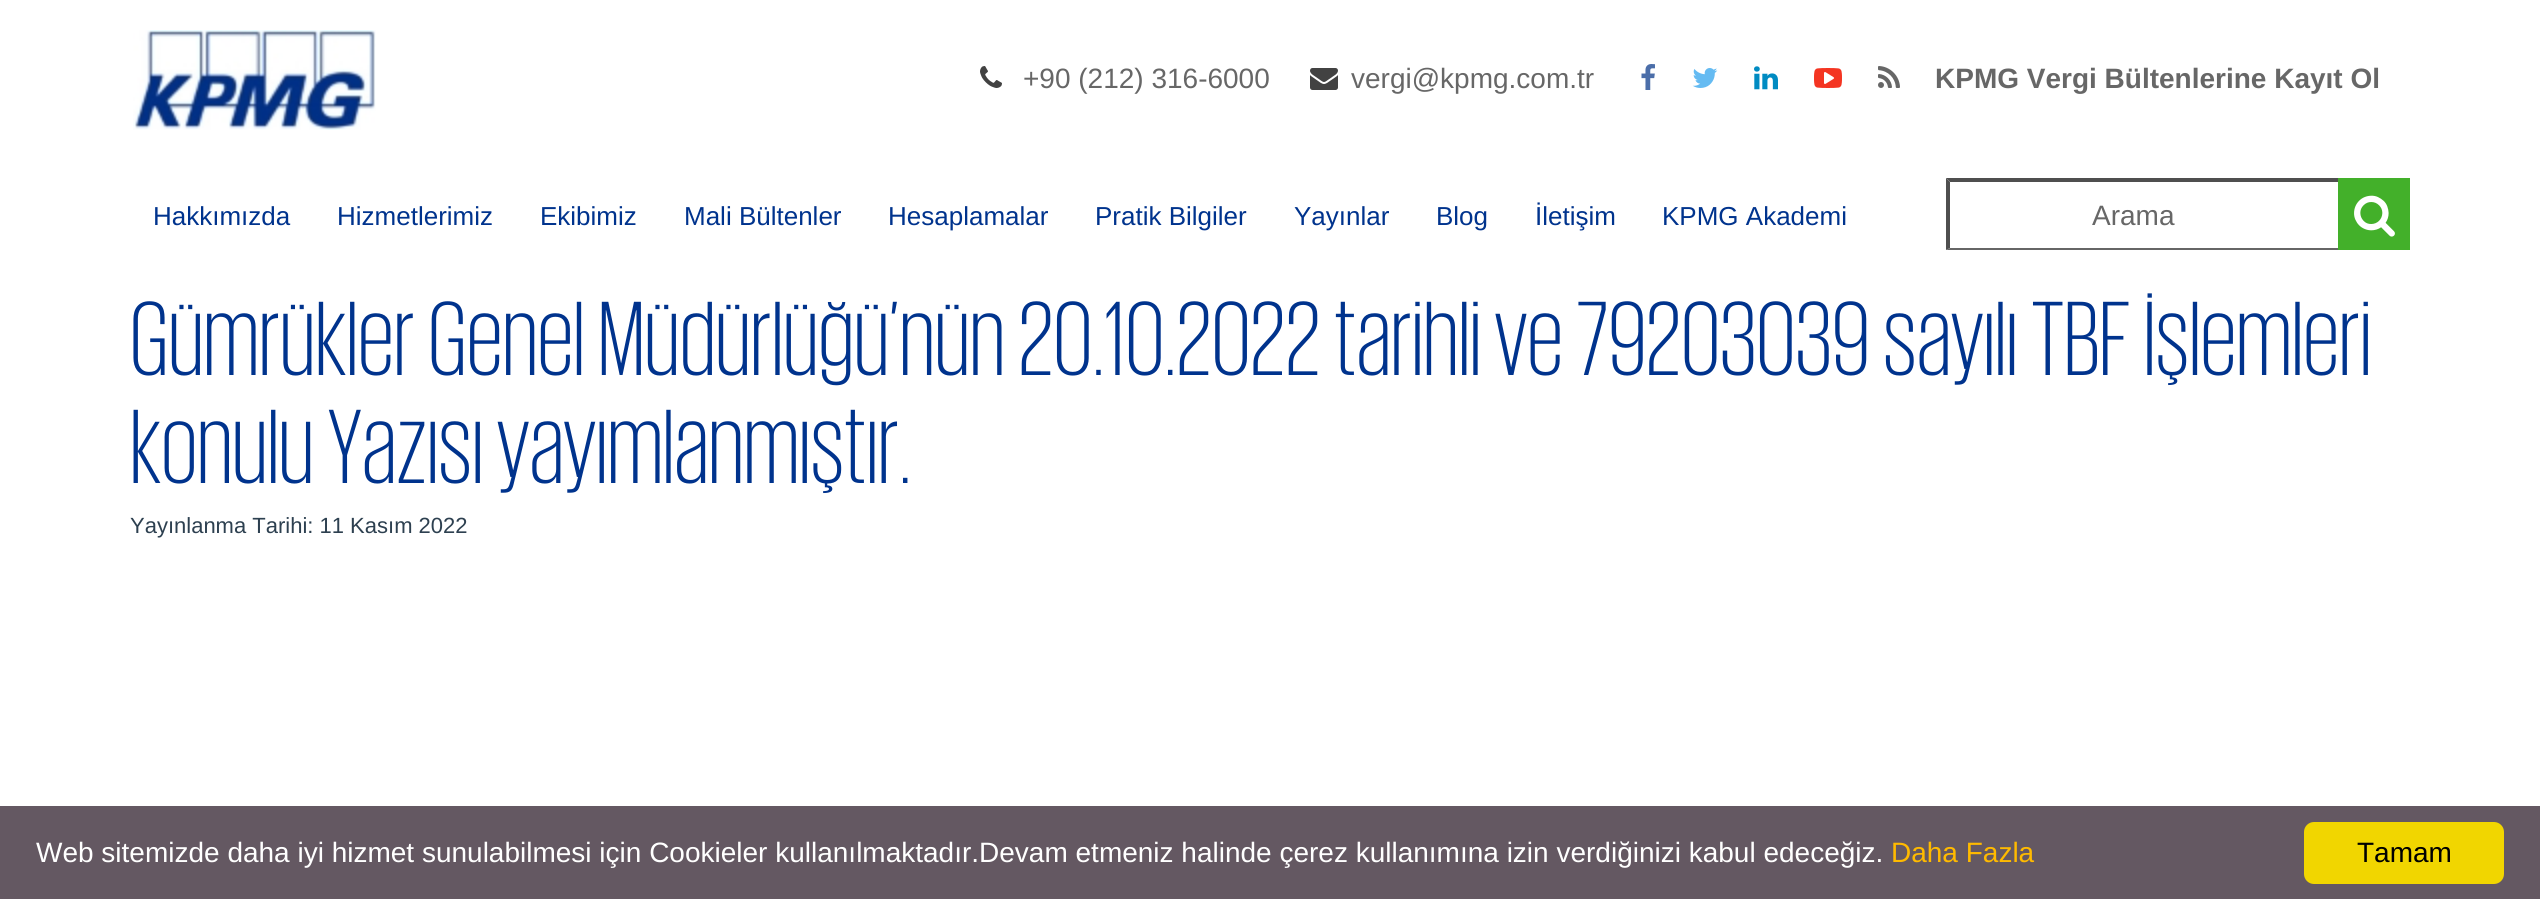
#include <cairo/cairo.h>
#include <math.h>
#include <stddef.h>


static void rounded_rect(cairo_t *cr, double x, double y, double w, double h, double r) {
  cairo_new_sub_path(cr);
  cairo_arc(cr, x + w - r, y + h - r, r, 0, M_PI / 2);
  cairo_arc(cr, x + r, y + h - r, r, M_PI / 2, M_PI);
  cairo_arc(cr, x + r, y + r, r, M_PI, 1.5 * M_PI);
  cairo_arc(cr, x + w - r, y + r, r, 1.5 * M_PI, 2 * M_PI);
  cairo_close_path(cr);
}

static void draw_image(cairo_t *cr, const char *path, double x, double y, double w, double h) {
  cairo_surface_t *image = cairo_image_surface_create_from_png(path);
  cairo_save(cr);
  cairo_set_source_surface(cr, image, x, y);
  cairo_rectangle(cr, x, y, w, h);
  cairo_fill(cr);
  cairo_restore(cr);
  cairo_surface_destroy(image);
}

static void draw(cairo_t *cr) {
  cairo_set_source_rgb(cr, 1, 1, 1);
  cairo_paint(cr);
  draw_image(cr, "images/1.png", 133, 30, 243, 100);
  draw_image(cr, "images/2.png", 980, 66, 22, 22);
  draw_image(cr, "images/3.png", 1310, 68, 28, 22);
  draw_image(cr, "images/4.png", 1641, 64, 14, 26);
  draw_image(cr, "images/5.png", 1692, 68, 26, 20);
  draw_image(cr, "images/6.png", 1754, 66, 24, 24);
  draw_image(cr, "images/7.png", 1814, 68, 28, 20);
  draw_image(cr, "images/8.png", 1878, 66, 22, 22);
  cairo_set_source_rgb(cr, 79 / 255.0, 79 / 255.0, 79 / 255.0);
  cairo_new_path(cr);
  cairo_move_to(cr, 1946, 178);
  cairo_line_to(cr, 2410, 178);
  cairo_line_to(cr, 2406, 182);
  cairo_line_to(cr, 1950, 182);
  cairo_close_path(cr);
  cairo_fill(cr);
  cairo_set_source_rgb(cr, 102 / 255.0, 102 / 255.0, 102 / 255.0);
  cairo_new_path(cr);
  cairo_move_to(cr, 2410, 250);
  cairo_line_to(cr, 1946, 250);
  cairo_line_to(cr, 1950, 248);
  cairo_line_to(cr, 2406, 248);
  cairo_close_path(cr);
  cairo_fill(cr);
  cairo_set_source_rgb(cr, 79 / 255.0, 79 / 255.0, 79 / 255.0);
  cairo_new_path(cr);
  cairo_move_to(cr, 1946, 250);
  cairo_line_to(cr, 1946, 178);
  cairo_line_to(cr, 1950, 182);
  cairo_line_to(cr, 1950, 248);
  cairo_close_path(cr);
  cairo_fill(cr);
  cairo_set_source_rgb(cr, 67 / 255.0, 176 / 255.0, 42 / 255.0);
  cairo_rectangle(cr, 2338, 178, 72, 72);
  cairo_fill(cr);
  draw_image(cr, "images/9.png", 2354, 195, 41, 42);
  cairo_set_source_rgb(cr, 100 / 255.0, 88 / 255.0, 98 / 255.0);
  cairo_rectangle(cr, 0, 806, 2540, 93);
  cairo_fill(cr);
  cairo_set_source_rgb(cr, 241 / 255.0, 214 / 255.0, 0);
  rounded_rect(cr, 2304, 822, 200, 62, 10);
  cairo_fill(cr);
  cairo_select_font_face(cr, "Liberation Sans", CAIRO_FONT_SLANT_NORMAL, CAIRO_FONT_WEIGHT_NORMAL);
  cairo_set_font_size(cr, 28);
  cairo_set_source_rgb(cr, 103 / 255.0, 103 / 255.0, 103 / 255.0);
  cairo_move_to(cr, 1023, 88);
  cairo_show_text(cr, "+90 (212) 316-6000");
  cairo_move_to(cr, 1351, 88);
  cairo_show_text(cr, "vergi@kpmg.com.tr");
  cairo_select_font_face(cr, "Liberation Sans", CAIRO_FONT_SLANT_NORMAL, CAIRO_FONT_WEIGHT_BOLD);
  cairo_move_to(cr, 1935, 88);
  cairo_show_text(cr, "KPMG Vergi Bültenlerine Kayıt Ol");
  cairo_select_font_face(cr, "Liberation Sans", CAIRO_FONT_SLANT_NORMAL, CAIRO_FONT_WEIGHT_NORMAL);
  cairo_set_font_size(cr, 26);
  cairo_set_source_rgb(cr, 0, 51 / 255.0, 141 / 255.0);
  cairo_move_to(cr, 153, 225);
  cairo_show_text(cr, "Hakkımızda");
  cairo_move_to(cr, 337, 225);
  cairo_show_text(cr, "Hizmetlerimiz");
  cairo_move_to(cr, 540, 225);
  cairo_show_text(cr, "Ekibimiz");
  cairo_move_to(cr, 684, 225);
  cairo_show_text(cr, "Mali Bültenler");
  cairo_move_to(cr, 888, 225);
  cairo_show_text(cr, "Hesaplamalar");
  cairo_move_to(cr, 1095, 225);
  cairo_show_text(cr, "Pratik Bilgiler");
  cairo_move_to(cr, 1294, 225);
  cairo_show_text(cr, "Yayınlar");
  cairo_move_to(cr, 1436, 225);
  cairo_show_text(cr, "Blog");
  cairo_move_to(cr, 1535, 225);
  cairo_show_text(cr, "İletişim");
  cairo_move_to(cr, 1662, 225);
  cairo_show_text(cr, "KPMG Akademi");
  cairo_set_font_size(cr, 28);
  cairo_set_source_rgb(cr, 103 / 255.0, 103 / 255.0, 103 / 255.0);
  cairo_move_to(cr, 2092, 225);
  cairo_show_text(cr, "Arama");
  cairo_select_font_face(cr, "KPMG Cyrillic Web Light", CAIRO_FONT_SLANT_NORMAL, CAIRO_FONT_WEIGHT_NORMAL);
  cairo_set_font_size(cr, 108);
  cairo_set_source_rgb(cr, 0, 51 / 255.0, 141 / 255.0);
  cairo_move_to(cr, 130, 375);
  cairo_show_text(cr, "Gümrükler Genel Müdürlüğü’nün 20.10.2022 tarihli ve 79203039 sayılı TBF İşlemleri");
  cairo_move_to(cr, 130, 483);
  cairo_show_text(cr, "konulu Yazısı yayımlanmıştır.");
  cairo_select_font_face(cr, "Liberation Sans", CAIRO_FONT_SLANT_NORMAL, CAIRO_FONT_WEIGHT_NORMAL);
  cairo_set_font_size(cr, 22);
  cairo_set_source_rgb(cr, 45 / 255.0, 64 / 255.0, 80 / 255.0);
  cairo_move_to(cr, 130, 533);
  cairo_show_text(cr, "Yayınlanma Tarihi: 11 Kasım 2022");
  cairo_set_font_size(cr, 28);
  cairo_set_source_rgb(cr, 1, 1, 1);
  cairo_move_to(cr, 36, 862);
  cairo_show_text(cr, "Web sitemizde daha iyi hizmet sunulabilmesi için Cookieler kullanılmaktadır.Devam etmeniz halinde çerez kullanımına izin verdiğinizi kabul edeceğiz.");
  cairo_set_source_rgb(cr, 1, 186 / 255.0, 0);
  cairo_move_to(cr, 1891, 862);
  cairo_show_text(cr, "Daha Fazla");
  cairo_set_source_rgb(cr, 0, 0, 0);
  cairo_move_to(cr, 2357, 862);
  cairo_show_text(cr, "Tamam");
}

int main(void) {
  cairo_surface_t *surface = cairo_image_surface_create(CAIRO_FORMAT_RGB24, 2540, 899);
  cairo_t *cr = cairo_create(surface);
  cairo_font_options_t *options = cairo_font_options_create();
  cairo_font_options_set_hint_metrics(options, CAIRO_HINT_METRICS_OFF);
  cairo_font_options_set_hint_style(options, CAIRO_HINT_STYLE_NONE);
  cairo_set_font_options(cr, options);
  cairo_set_miter_limit(cr, 4);
  draw(cr);
  cairo_surface_write_to_png(surface, "out.png");
  cairo_font_options_destroy(options);
  cairo_destroy(cr);
  cairo_surface_destroy(surface);
  return 0;
}
